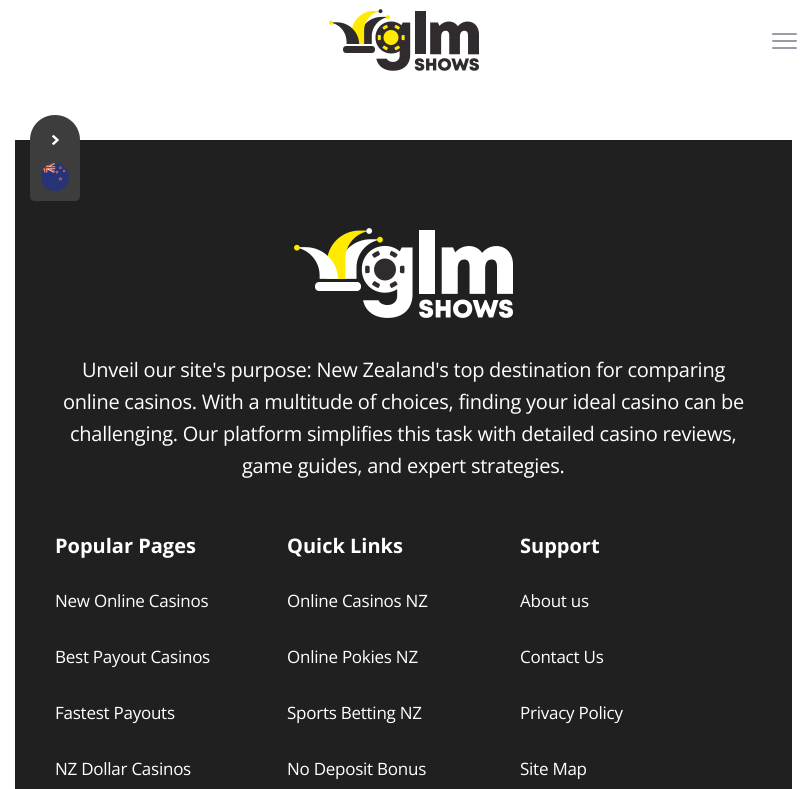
#include <cairo/cairo.h>
#include <math.h>
#include <stddef.h>


static void draw_spaced(cairo_t *cr, double x, double y, const char *s, double letter, double word) {
  cairo_move_to(cr, x, y);
  while (*s) {
    char ch[5] = {0};
    int n = 0;
    do ch[n++] = *s++; while ((*s & 0xC0) == 0x80);
    cairo_show_text(cr, ch);
    cairo_rel_move_to(cr, letter + word * (*ch == ' '), 0);
  }
}

static void rounded_rect(cairo_t *cr, double x, double y, double w, double h, double r) {
  cairo_new_sub_path(cr);
  cairo_arc(cr, x + w - r, y + h - r, r, 0, M_PI / 2);
  cairo_arc(cr, x + r, y + h - r, r, M_PI / 2, M_PI);
  cairo_arc(cr, x + r, y + r, r, M_PI, 1.5 * M_PI);
  cairo_arc(cr, x + w - r, y + r, r, 1.5 * M_PI, 2 * M_PI);
  cairo_close_path(cr);
}

static void draw_image(cairo_t *cr, const char *path, double x, double y, double w, double h) {
  cairo_surface_t *image = cairo_image_surface_create_from_png(path);
  cairo_save(cr);
  cairo_set_source_surface(cr, image, x, y);
  cairo_rectangle(cr, x, y, w, h);
  cairo_fill(cr);
  cairo_restore(cr);
  cairo_surface_destroy(image);
}

static void draw(cairo_t *cr) {
  cairo_set_source_rgb(cr, 1, 1, 1);
  cairo_paint(cr);
  draw_image(cr, "images/1.png", 329, 9, 150, 62);
  cairo_set_source_rgb(cr, 155 / 255.0, 155 / 255.0, 167 / 255.0);
  rounded_rect(cr, 772, 33, 25, 2, 1);
  cairo_fill(cr);
  rounded_rect(cr, 772, 40, 25, 2, 1);
  cairo_fill(cr);
  rounded_rect(cr, 772, 47, 25, 2, 1);
  cairo_fill(cr);
  cairo_set_source_rgb(cr, 32 / 255.0, 32 / 255.0, 32 / 255.0);
  cairo_rectangle(cr, 15, 140, 777, 649);
  cairo_fill(cr);
  cairo_set_source_rgb(cr, 61 / 255.0, 61 / 255.0, 61 / 255.0);
  cairo_new_path(cr);
  cairo_move_to(cr, 55, 115);
  cairo_curve_to(cr, 69, 115, 80, 126, 80, 140);
  cairo_line_to(cr, 80, 196);
  cairo_curve_to(cr, 80, 199, 78, 201, 75, 201);
  cairo_line_to(cr, 35, 201);
  cairo_curve_to(cr, 32, 201, 30, 199, 30, 196);
  cairo_line_to(cr, 30, 140);
  cairo_curve_to(cr, 30, 126, 41, 115, 55, 115);
  cairo_close_path(cr);
  cairo_fill(cr);
  draw_image(cr, "images/2.png", 52, 135, 7, 10);
  draw_image(cr, "images/3.png", 41, 163, 28, 28);
  draw_image(cr, "images/4.png", 294, 228, 219, 90);
  cairo_select_font_face(cr, "Open Sans", CAIRO_FONT_SLANT_NORMAL, CAIRO_FONT_WEIGHT_NORMAL);
  cairo_set_font_size(cr, 20);
  cairo_set_source_rgb(cr, 1, 1, 1);
  draw_spaced(cr, 82, 377, "Unveil our site's purpose: New Zealand's top destination for comparing", -0.25, 0);
  draw_spaced(cr, 63, 409, "online casinos. With a multitude of choices, finding your ideal casino can be", -0.25, 0);
  draw_spaced(cr, 70, 441, "challenging. Our platform simplifies this task with detailed casino reviews,", -0.25, 0);
  draw_spaced(cr, 242, 473, "game guides, and expert strategies.", -0.25, 0);
  cairo_select_font_face(cr, "Open Sans", CAIRO_FONT_SLANT_NORMAL, CAIRO_FONT_WEIGHT_BOLD);
  cairo_move_to(cr, 55, 553);
  cairo_show_text(cr, "Popular Pages");
  cairo_select_font_face(cr, "Open Sans", CAIRO_FONT_SLANT_NORMAL, CAIRO_FONT_WEIGHT_NORMAL);
  cairo_set_font_size(cr, 17);
  draw_spaced(cr, 55, 607, "New Online Casinos", -0.25, 0);
  draw_spaced(cr, 55, 663, "Best Payout Casinos", -0.25, 0);
  draw_spaced(cr, 55, 719, "Fastest Payouts", -0.25, 0);
  draw_spaced(cr, 55, 775, "NZ Dollar Casinos", -0.25, 0);
  cairo_select_font_face(cr, "Open Sans", CAIRO_FONT_SLANT_NORMAL, CAIRO_FONT_WEIGHT_BOLD);
  cairo_set_font_size(cr, 20);
  cairo_move_to(cr, 287, 553);
  cairo_show_text(cr, "Quick Links");
  cairo_select_font_face(cr, "Open Sans", CAIRO_FONT_SLANT_NORMAL, CAIRO_FONT_WEIGHT_NORMAL);
  cairo_set_font_size(cr, 17);
  draw_spaced(cr, 287, 607, "Online Casinos NZ", -0.25, 0);
  draw_spaced(cr, 287, 663, "Online Pokies NZ", -0.25, 0);
  draw_spaced(cr, 287, 719, "Sports Betting NZ", -0.25, 0);
  draw_spaced(cr, 287, 775, "No Deposit Bonus", -0.25, 0);
  cairo_select_font_face(cr, "Open Sans", CAIRO_FONT_SLANT_NORMAL, CAIRO_FONT_WEIGHT_BOLD);
  cairo_set_font_size(cr, 20);
  cairo_move_to(cr, 520, 553);
  cairo_show_text(cr, "Support");
  cairo_select_font_face(cr, "Open Sans", CAIRO_FONT_SLANT_NORMAL, CAIRO_FONT_WEIGHT_NORMAL);
  cairo_set_font_size(cr, 17);
  draw_spaced(cr, 520, 607, "About us", -0.25, 0);
  draw_spaced(cr, 520, 663, "Contact Us", -0.25, 0);
  draw_spaced(cr, 520, 719, "Privacy Policy", -0.25, 0);
  draw_spaced(cr, 520, 775, "Site Map", -0.25, 0);
}

int main(void) {
  cairo_surface_t *surface = cairo_image_surface_create(CAIRO_FORMAT_RGB24, 807, 789);
  cairo_t *cr = cairo_create(surface);
  cairo_font_options_t *options = cairo_font_options_create();
  cairo_font_options_set_hint_metrics(options, CAIRO_HINT_METRICS_OFF);
  cairo_font_options_set_hint_style(options, CAIRO_HINT_STYLE_NONE);
  cairo_set_font_options(cr, options);
  cairo_set_miter_limit(cr, 4);
  draw(cr);
  cairo_surface_write_to_png(surface, "out.png");
  cairo_font_options_destroy(options);
  cairo_destroy(cr);
  cairo_surface_destroy(surface);
  return 0;
}
